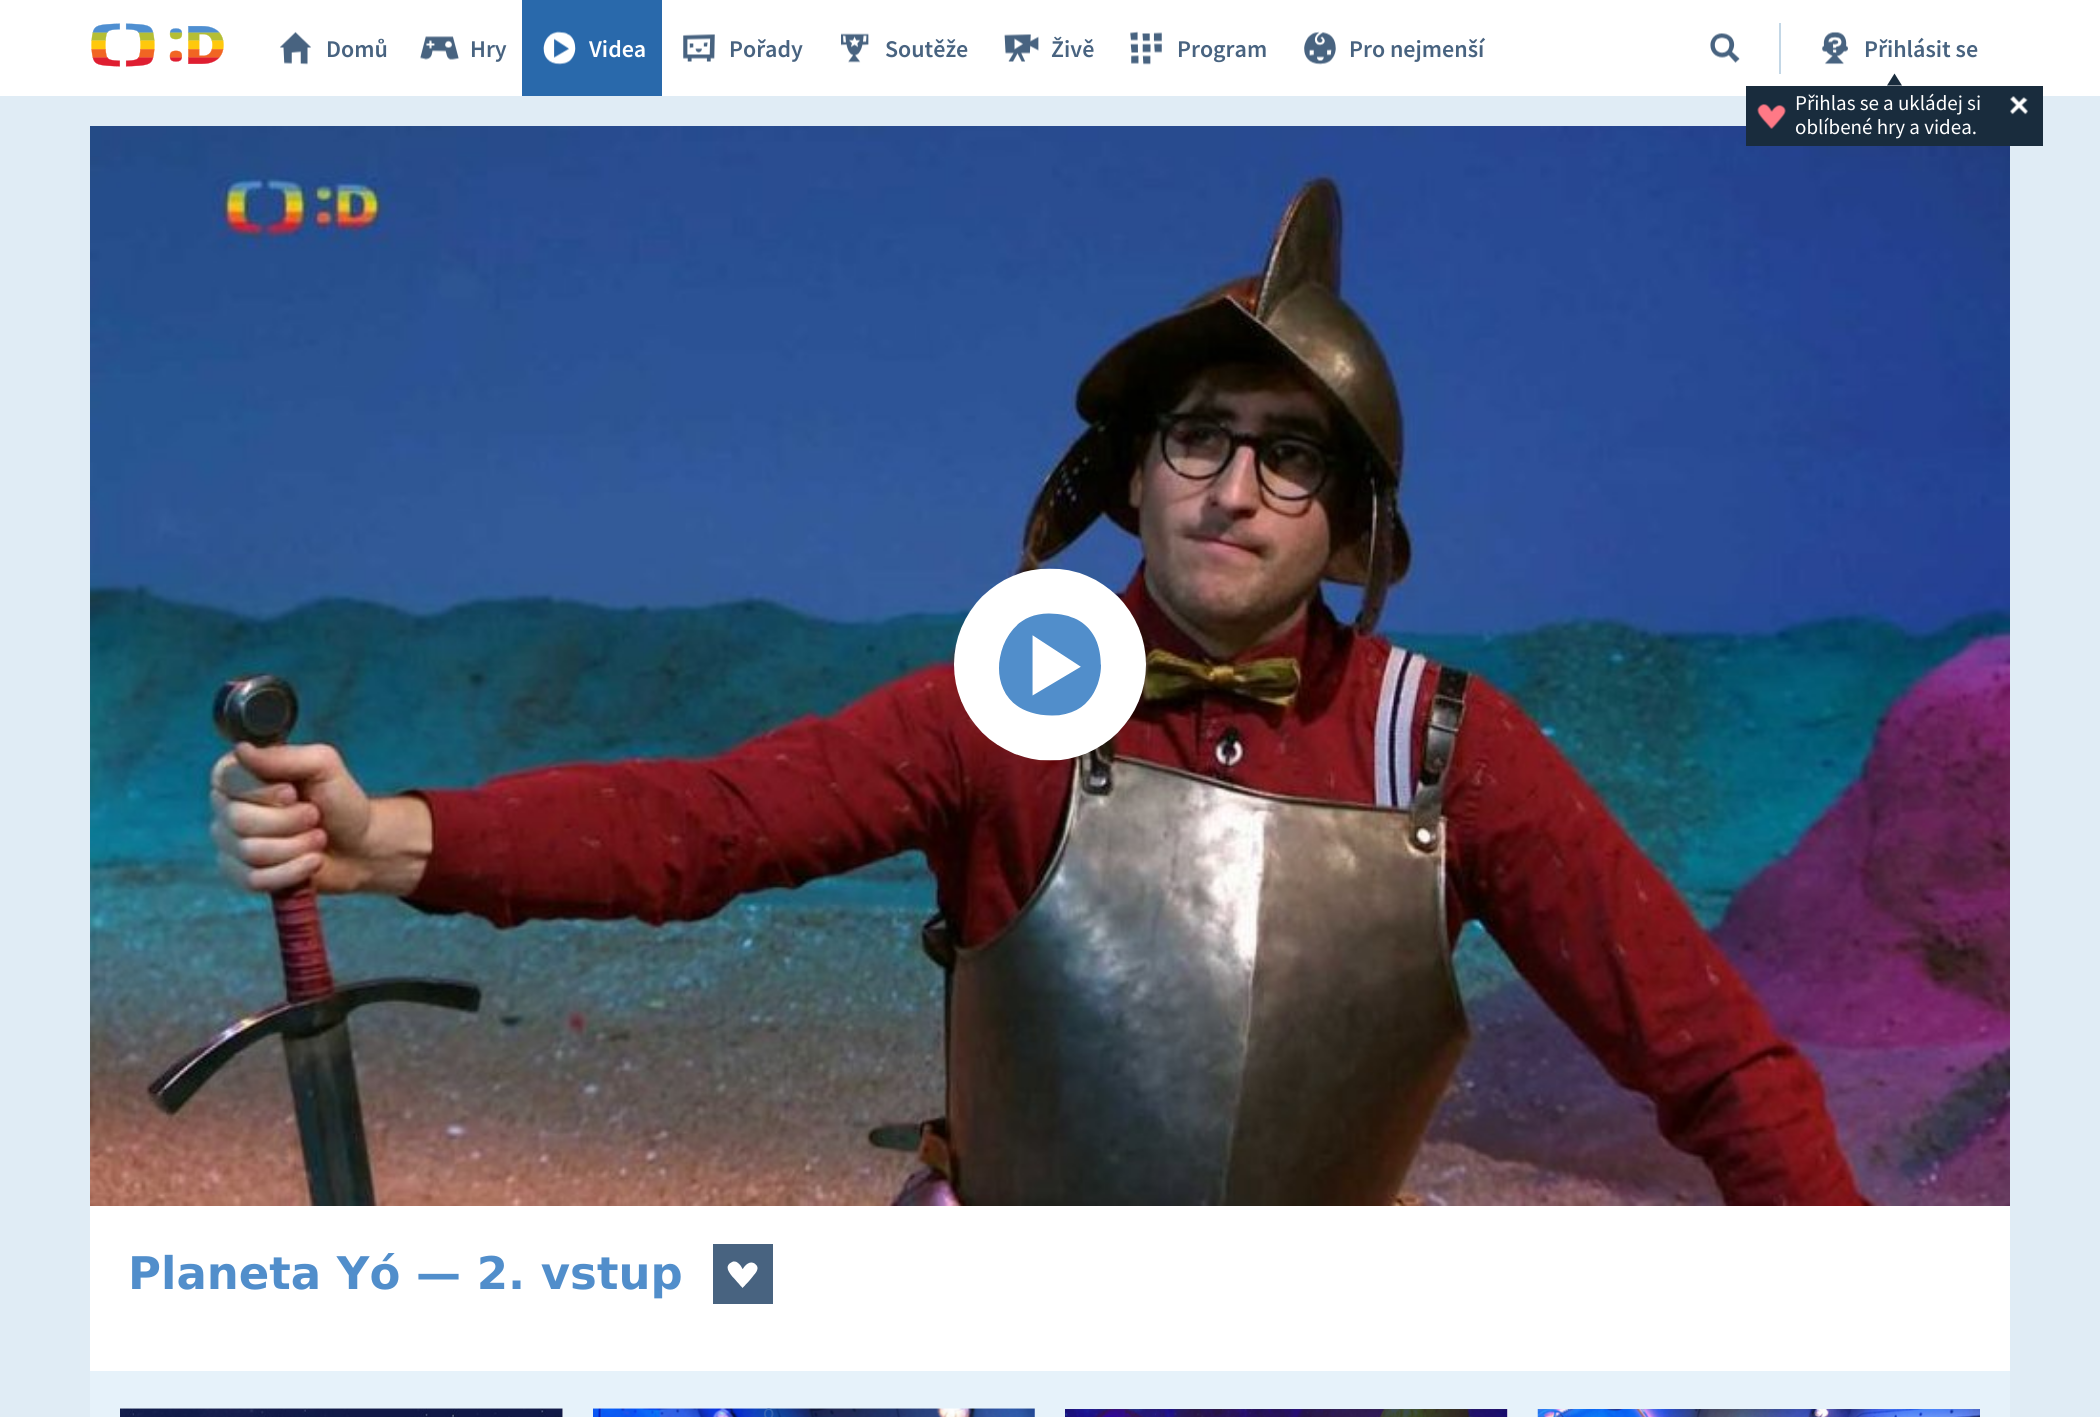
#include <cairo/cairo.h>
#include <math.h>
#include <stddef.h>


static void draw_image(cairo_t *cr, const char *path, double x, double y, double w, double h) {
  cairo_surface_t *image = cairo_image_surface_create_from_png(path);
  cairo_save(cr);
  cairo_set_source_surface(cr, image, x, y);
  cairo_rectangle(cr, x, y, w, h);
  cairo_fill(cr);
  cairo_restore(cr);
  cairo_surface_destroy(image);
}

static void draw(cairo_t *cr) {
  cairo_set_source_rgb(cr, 224 / 255.0, 236 / 255.0, 245 / 255.0);
  cairo_paint(cr);
  cairo_set_source_rgb(cr, 1, 1, 1);
  cairo_rectangle(cr, 0, 0, 2100, 96);
  cairo_fill(cr);
  draw_image(cr, "images/1.png", 91, 23, 133, 44);
  draw_image(cr, "images/2.png", 280, 31, 31, 34);
  draw_image(cr, "images/3.png", 420, 36, 39, 24);
  cairo_set_source_rgb(cr, 41 / 255.0, 105 / 255.0, 171 / 255.0);
  cairo_rectangle(cr, 522, 0, 140, 96);
  cairo_fill(cr);
  draw_image(cr, "images/4.png", 543, 31, 33, 34);
  draw_image(cr, "images/5.png", 683, 34, 32, 28);
  draw_image(cr, "images/6.png", 841, 33, 28, 30);
  draw_image(cr, "images/7.png", 1004, 34, 35, 28);
  draw_image(cr, "images/8.png", 1130, 31, 32, 34);
  draw_image(cr, "images/9.png", 1304, 31, 32, 34);
  draw_image(cr, "images/10.png", 1710, 33, 30, 30);
  cairo_set_source_rgb(cr, 195 / 255.0, 215 / 255.0, 230 / 255.0);
  cairo_rectangle(cr, 1779, 23, 2, 51);
  cairo_fill(cr);
  draw_image(cr, "images/11.png", 1822, 31, 26, 34);
  draw_image(cr, "images/14.png", 90, 126, 1920, 1080);
  cairo_set_source_rgb(cr, 25 / 255.0, 44 / 255.0, 61 / 255.0);
  cairo_rectangle(cr, 1746, 86, 297, 60);
  cairo_fill(cr);
  cairo_new_path(cr);
  cairo_move_to(cr, 1902, 85.5);
  cairo_line_to(cr, 1887, 85.5);
  cairo_line_to(cr, 1894.5, 73.5);
  cairo_close_path(cr);
  cairo_fill(cr);
  draw_image(cr, "images/12.png", 1757, 104, 29, 25);
  draw_image(cr, "images/13.png", 2010, 96, 18, 19);
  draw_image(cr, "images/15.png", 954, 568, 192, 193);
  cairo_set_source_rgb(cr, 1, 1, 1);
  cairo_rectangle(cr, 90, 1206, 1920, 165);
  cairo_fill(cr);
  cairo_set_source_rgb(cr, 72 / 255.0, 99 / 255.0, 128 / 255.0);
  cairo_rectangle(cr, 713, 1244, 60, 60);
  cairo_fill(cr);
  draw_image(cr, "images/16.png", 727, 1261, 31, 27);
  cairo_set_source_rgb(cr, 230 / 255.0, 242 / 255.0, 250 / 255.0);
  cairo_rectangle(cr, 90, 1371, 1920, 46);
  cairo_fill(cr);
  cairo_set_source_rgb(cr, 1, 1, 1);
  cairo_rectangle(cr, 562, 1409, 1, 8);
  cairo_fill(cr);
  draw_image(cr, "images/17.png", 120, 1408, 443, 9);
  draw_image(cr, "images/18.png", 593, 1408, 442, 9);
  cairo_rectangle(cr, 1065, 1409, 443, 8);
  cairo_fill(cr);
  draw_image(cr, "images/19.png", 1065, 1409, 443, 8);
  draw_image(cr, "images/20.png", 1537, 1409, 443, 8);
  cairo_select_font_face(cr, "Source Sans Pro SemiBold", CAIRO_FONT_SLANT_NORMAL, CAIRO_FONT_WEIGHT_NORMAL);
  cairo_set_font_size(cr, 24);
  cairo_set_source_rgb(cr, 72 / 255.0, 99 / 255.0, 128 / 255.0);
  cairo_move_to(cr, 326, 57);
  cairo_show_text(cr, "Domů");
  cairo_move_to(cr, 470, 57);
  cairo_show_text(cr, "Hry");
  cairo_set_source_rgb(cr, 1, 1, 1);
  cairo_move_to(cr, 589, 57);
  cairo_show_text(cr, "Videa");
  cairo_set_source_rgb(cr, 72 / 255.0, 99 / 255.0, 128 / 255.0);
  cairo_move_to(cr, 729, 57);
  cairo_show_text(cr, "Pořady");
  cairo_move_to(cr, 885, 57);
  cairo_show_text(cr, "Soutěže");
  cairo_move_to(cr, 1051, 57);
  cairo_show_text(cr, "Živě");
  cairo_move_to(cr, 1177, 57);
  cairo_show_text(cr, "Program");
  cairo_move_to(cr, 1349, 57);
  cairo_show_text(cr, "Pro nejmenší");
  cairo_move_to(cr, 1864, 57);
  cairo_show_text(cr, "Přihlásit se");
  cairo_select_font_face(cr, "Source Sans Pro", CAIRO_FONT_SLANT_NORMAL, CAIRO_FONT_WEIGHT_NORMAL);
  cairo_set_font_size(cr, 21);
  cairo_set_source_rgb(cr, 1, 1, 1);
  cairo_move_to(cr, 1795, 110);
  cairo_show_text(cr, "Přihlas se a ukládej si");
  cairo_move_to(cr, 1795, 134);
  cairo_show_text(cr, "oblíbené hry a videa.");
  cairo_select_font_face(cr, "DejaVu Sans", CAIRO_FONT_SLANT_NORMAL, CAIRO_FONT_WEIGHT_BOLD);
  cairo_set_font_size(cr, 45);
  cairo_set_source_rgb(cr, 81 / 255.0, 142 / 255.0, 203 / 255.0);
  cairo_move_to(cr, 128, 1289);
  cairo_show_text(cr, "Planeta Yó — 2. vstup");
  cairo_select_font_face(cr, "Source Sans Pro", CAIRO_FONT_SLANT_NORMAL, CAIRO_FONT_WEIGHT_NORMAL);
  cairo_set_font_size(cr, 21);
  cairo_set_source_rgb(cr, 52 / 255.0, 99 / 255.0, 178 / 255.0);
  cairo_move_to(cr, 763, 1419);
  cairo_show_text(cr, "o");
}

int main(void) {
  cairo_surface_t *surface = cairo_image_surface_create(CAIRO_FORMAT_RGB24, 2100, 1417);
  cairo_t *cr = cairo_create(surface);
  cairo_font_options_t *options = cairo_font_options_create();
  cairo_font_options_set_hint_metrics(options, CAIRO_HINT_METRICS_OFF);
  cairo_font_options_set_hint_style(options, CAIRO_HINT_STYLE_NONE);
  cairo_set_font_options(cr, options);
  cairo_set_miter_limit(cr, 4);
  draw(cr);
  cairo_surface_write_to_png(surface, "out.png");
  cairo_font_options_destroy(options);
  cairo_destroy(cr);
  cairo_surface_destroy(surface);
  return 0;
}
